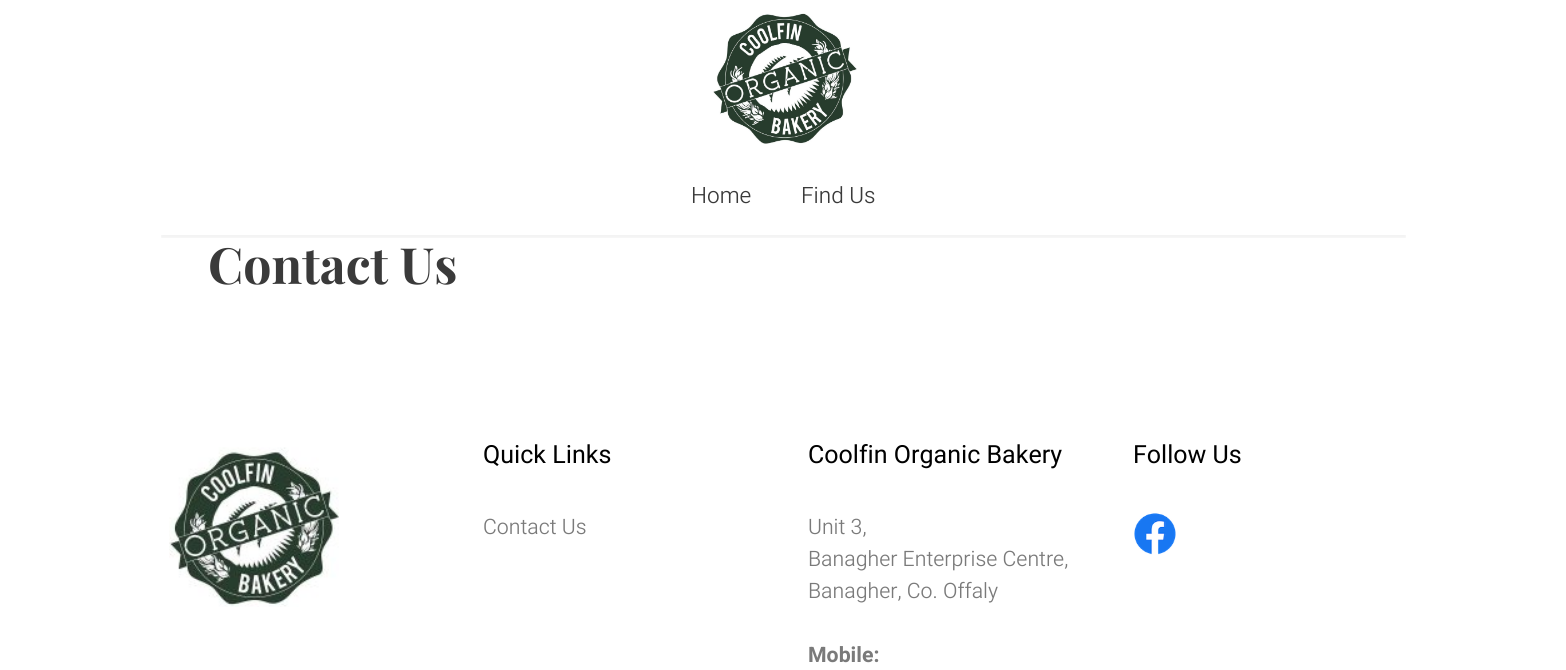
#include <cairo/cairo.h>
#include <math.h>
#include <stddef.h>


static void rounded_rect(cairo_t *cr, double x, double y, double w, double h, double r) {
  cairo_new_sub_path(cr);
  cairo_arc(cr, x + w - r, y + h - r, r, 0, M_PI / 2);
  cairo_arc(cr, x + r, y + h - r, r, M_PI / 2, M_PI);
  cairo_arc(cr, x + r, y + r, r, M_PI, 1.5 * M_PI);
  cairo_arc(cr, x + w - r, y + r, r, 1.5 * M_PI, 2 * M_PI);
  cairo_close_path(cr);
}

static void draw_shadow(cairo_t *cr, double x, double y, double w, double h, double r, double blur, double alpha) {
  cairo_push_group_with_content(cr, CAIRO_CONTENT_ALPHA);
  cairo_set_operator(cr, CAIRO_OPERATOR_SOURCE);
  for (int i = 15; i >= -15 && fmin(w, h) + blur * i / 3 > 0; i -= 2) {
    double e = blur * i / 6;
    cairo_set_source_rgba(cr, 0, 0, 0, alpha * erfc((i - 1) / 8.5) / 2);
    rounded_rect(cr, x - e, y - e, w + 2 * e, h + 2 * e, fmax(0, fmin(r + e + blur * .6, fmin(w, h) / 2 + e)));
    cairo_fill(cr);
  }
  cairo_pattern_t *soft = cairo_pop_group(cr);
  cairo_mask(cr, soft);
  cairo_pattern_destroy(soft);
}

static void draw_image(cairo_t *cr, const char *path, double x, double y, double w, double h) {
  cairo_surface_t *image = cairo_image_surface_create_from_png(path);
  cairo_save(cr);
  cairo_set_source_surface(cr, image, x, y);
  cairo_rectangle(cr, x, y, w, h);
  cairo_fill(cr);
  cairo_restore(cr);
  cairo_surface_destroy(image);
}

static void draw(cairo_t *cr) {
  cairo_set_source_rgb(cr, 1, 1, 1);
  cairo_paint(cr);
  draw_image(cr, "images/1.png", 713, 13, 144, 131);
  cairo_save(cr);
  cairo_rectangle(cr, 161, 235, 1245, 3);
  cairo_clip(cr);
  cairo_set_source_rgb(cr, 0, 0, 0);
  draw_shadow(cr, 161, 168, 1245, 70, 0, 1, 0.05);
  cairo_restore(cr);
  draw_image(cr, "images/2.png", 169, 447, 170, 160);
  draw_image(cr, "images/3.png", 1134, 513, 42, 42);
  cairo_select_font_face(cr, "Heebo Light", CAIRO_FONT_SLANT_NORMAL, CAIRO_FONT_WEIGHT_NORMAL);
  cairo_set_font_size(cr, 22.5);
  cairo_set_source_rgb(cr, 58 / 255.0, 58 / 255.0, 58 / 255.0);
  cairo_move_to(cr, 691, 203);
  cairo_show_text(cr, "Home");
  cairo_move_to(cr, 801, 203);
  cairo_show_text(cr, "Find Us");
  cairo_select_font_face(cr, "Playfair Display", CAIRO_FONT_SLANT_NORMAL, CAIRO_FONT_WEIGHT_BOLD);
  cairo_set_font_size(cr, 50);
  cairo_move_to(cr, 208, 284);
  cairo_show_text(cr, "Contact Us");
  cairo_select_font_face(cr, "Heebo", CAIRO_FONT_SLANT_NORMAL, CAIRO_FONT_WEIGHT_NORMAL);
  cairo_set_font_size(cr, 25);
  cairo_set_source_rgb(cr, 0, 0, 0);
  cairo_move_to(cr, 483, 463);
  cairo_show_text(cr, "Quick Links");
  cairo_select_font_face(cr, "Heebo Light", CAIRO_FONT_SLANT_NORMAL, CAIRO_FONT_WEIGHT_NORMAL);
  cairo_set_font_size(cr, 21.25);
  cairo_set_source_rgb(cr, 122 / 255.0, 122 / 255.0, 122 / 255.0);
  cairo_move_to(cr, 483, 534);
  cairo_show_text(cr, "Contact Us");
  cairo_select_font_face(cr, "Heebo", CAIRO_FONT_SLANT_NORMAL, CAIRO_FONT_WEIGHT_NORMAL);
  cairo_set_font_size(cr, 25);
  cairo_set_source_rgb(cr, 0, 0, 0);
  cairo_move_to(cr, 808, 463);
  cairo_show_text(cr, "Coolfin Organic Bakery");
  cairo_select_font_face(cr, "Heebo Light", CAIRO_FONT_SLANT_NORMAL, CAIRO_FONT_WEIGHT_NORMAL);
  cairo_set_font_size(cr, 21.25);
  cairo_set_source_rgb(cr, 122 / 255.0, 122 / 255.0, 122 / 255.0);
  cairo_move_to(cr, 808, 534);
  cairo_show_text(cr, "Unit 3,");
  cairo_move_to(cr, 808, 566);
  cairo_show_text(cr, "Banagher Enterprise Centre,");
  cairo_move_to(cr, 808, 598);
  cairo_show_text(cr, "Banagher, Co. Offaly");
  cairo_select_font_face(cr, "Heebo", CAIRO_FONT_SLANT_NORMAL, CAIRO_FONT_WEIGHT_BOLD);
  cairo_move_to(cr, 808, 662);
  cairo_show_text(cr, "Mobile:");
  cairo_select_font_face(cr, "Heebo", CAIRO_FONT_SLANT_NORMAL, CAIRO_FONT_WEIGHT_NORMAL);
  cairo_set_font_size(cr, 25);
  cairo_set_source_rgb(cr, 0, 0, 0);
  cairo_move_to(cr, 1133, 463);
  cairo_show_text(cr, "Follow Us");
}

int main(void) {
  cairo_surface_t *surface = cairo_image_surface_create(CAIRO_FORMAT_RGB24, 1566, 670);
  cairo_t *cr = cairo_create(surface);
  cairo_font_options_t *options = cairo_font_options_create();
  cairo_font_options_set_hint_metrics(options, CAIRO_HINT_METRICS_OFF);
  cairo_font_options_set_hint_style(options, CAIRO_HINT_STYLE_NONE);
  cairo_set_font_options(cr, options);
  cairo_set_miter_limit(cr, 4);
  draw(cr);
  cairo_surface_write_to_png(surface, "out.png");
  cairo_font_options_destroy(options);
  cairo_destroy(cr);
  cairo_surface_destroy(surface);
  return 0;
}
